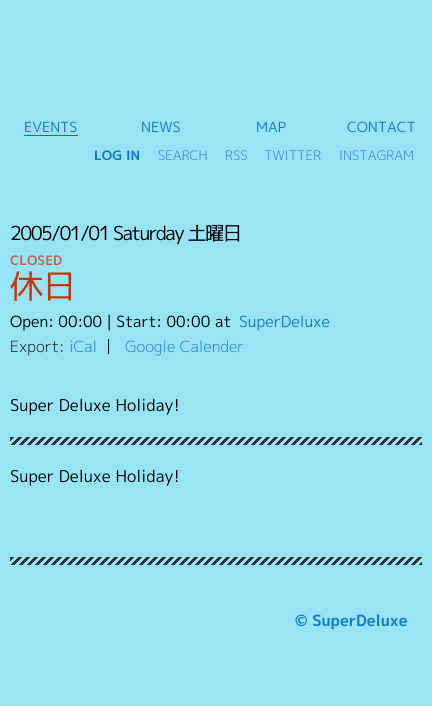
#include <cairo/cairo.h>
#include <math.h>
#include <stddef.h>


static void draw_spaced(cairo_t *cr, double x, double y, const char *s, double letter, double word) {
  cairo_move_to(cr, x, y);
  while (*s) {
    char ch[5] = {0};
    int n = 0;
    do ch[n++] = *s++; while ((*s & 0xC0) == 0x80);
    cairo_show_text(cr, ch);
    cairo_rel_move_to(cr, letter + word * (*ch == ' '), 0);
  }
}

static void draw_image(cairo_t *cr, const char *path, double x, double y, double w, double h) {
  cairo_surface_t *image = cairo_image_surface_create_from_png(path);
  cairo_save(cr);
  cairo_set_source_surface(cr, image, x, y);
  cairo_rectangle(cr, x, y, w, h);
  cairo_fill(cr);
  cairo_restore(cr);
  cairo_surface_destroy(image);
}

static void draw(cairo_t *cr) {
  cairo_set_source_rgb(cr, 153 / 255.0, 227 / 255.0, 247 / 255.0);
  cairo_paint(cr);
  cairo_set_source_rgb(cr, 228 / 255.0, 37 / 255.0, 31 / 255.0);
  cairo_rectangle(cr, 24, 135, 54, 1);
  cairo_fill(cr);
  cairo_set_source_rgb(cr, 0, 0, 0);
  cairo_rectangle(cr, 108, 339, 1, 15);
  cairo_fill(cr);
  draw_image(cr, "images/1.png", 10, 437, 412, 8);
  draw_image(cr, "images/1.png", 10, 557, 412, 8);
  cairo_select_font_face(cr, "M PLUS 1p", CAIRO_FONT_SLANT_NORMAL, CAIRO_FONT_WEIGHT_NORMAL);
  cairo_set_font_size(cr, 14);
  cairo_set_source_rgb(cr, 18 / 255.0, 120 / 255.0, 194 / 255.0);
  cairo_move_to(cr, 24, 132);
  cairo_show_text(cr, "EVENTS");
  cairo_move_to(cr, 141, 132);
  cairo_show_text(cr, "NEWS");
  cairo_move_to(cr, 256, 132);
  cairo_show_text(cr, "MAP");
  cairo_move_to(cr, 347, 132);
  cairo_show_text(cr, "CONTACT");
  cairo_select_font_face(cr, "M PLUS 1p", CAIRO_FONT_SLANT_NORMAL, CAIRO_FONT_WEIGHT_BOLD);
  cairo_set_font_size(cr, 13);
  cairo_move_to(cr, 94, 160);
  cairo_show_text(cr, "LOG IN");
  cairo_select_font_face(cr, "M PLUS 1p Light", CAIRO_FONT_SLANT_NORMAL, CAIRO_FONT_WEIGHT_NORMAL);
  cairo_move_to(cr, 158, 160);
  cairo_show_text(cr, "SEARCH");
  cairo_move_to(cr, 225, 160);
  cairo_show_text(cr, "RSS");
  cairo_move_to(cr, 264, 160);
  cairo_show_text(cr, "TWITTER");
  cairo_move_to(cr, 339, 160);
  cairo_show_text(cr, "INSTAGRAM");
  cairo_select_font_face(cr, "M PLUS 1p", CAIRO_FONT_SLANT_NORMAL, CAIRO_FONT_WEIGHT_NORMAL);
  cairo_set_font_size(cr, 19.25);
  cairo_set_source_rgb(cr, 0, 0, 0);
  draw_spaced(cr, 10, 240, "2005/01/01 Saturday 土曜日", -1.6, 0);
  cairo_select_font_face(cr, "M PLUS 1p", CAIRO_FONT_SLANT_NORMAL, CAIRO_FONT_WEIGHT_BOLD);
  cairo_set_font_size(cr, 13);
  cairo_set_source_rgb(cr, 187 / 255.0, 105 / 255.0, 78 / 255.0);
  cairo_move_to(cr, 10, 265);
  cairo_show_text(cr, "CLOSED");
  cairo_select_font_face(cr, "M PLUS 1p", CAIRO_FONT_SLANT_NORMAL, CAIRO_FONT_WEIGHT_NORMAL);
  cairo_set_font_size(cr, 33);
  cairo_set_source_rgb(cr, 201 / 255.0, 53 / 255.0, 6 / 255.0);
  cairo_move_to(cr, 10, 298);
  cairo_show_text(cr, "休日");
  cairo_set_font_size(cr, 15.4);
  cairo_set_source_rgb(cr, 0, 0, 0);
  cairo_move_to(cr, 10, 327);
  cairo_show_text(cr, "Open: 00:00 | Start: 00:00");
  cairo_move_to(cr, 215, 327);
  cairo_show_text(cr, "at");
  cairo_set_source_rgb(cr, 18 / 255.0, 120 / 255.0, 194 / 255.0);
  cairo_move_to(cr, 239, 327);
  cairo_show_text(cr, "SuperDeluxe");
  cairo_select_font_face(cr, "M PLUS 1p Light", CAIRO_FONT_SLANT_NORMAL, CAIRO_FONT_WEIGHT_NORMAL);
  cairo_set_source_rgb(cr, 0, 0, 0);
  cairo_move_to(cr, 10, 352);
  cairo_show_text(cr, "Export:");
  cairo_set_source_rgb(cr, 18 / 255.0, 120 / 255.0, 194 / 255.0);
  cairo_move_to(cr, 69, 352);
  cairo_show_text(cr, "iCal");
  cairo_move_to(cr, 125, 352);
  cairo_show_text(cr, "Google Calender");
  cairo_select_font_face(cr, "M PLUS 1p", CAIRO_FONT_SLANT_NORMAL, CAIRO_FONT_WEIGHT_NORMAL);
  cairo_set_font_size(cr, 16.25);
  cairo_set_source_rgb(cr, 0, 0, 0);
  cairo_move_to(cr, 10, 411);
  cairo_show_text(cr, "Super Deluxe Holiday!");
  cairo_move_to(cr, 10, 482);
  cairo_show_text(cr, "Super Deluxe Holiday!");
  cairo_select_font_face(cr, "M PLUS 1p", CAIRO_FONT_SLANT_NORMAL, CAIRO_FONT_WEIGHT_BOLD);
  cairo_set_font_size(cr, 15.4);
  cairo_set_source_rgb(cr, 18 / 255.0, 120 / 255.0, 194 / 255.0);
  cairo_move_to(cr, 295, 626);
  cairo_show_text(cr, "© SuperDeluxe");
}

int main(void) {
  cairo_surface_t *surface = cairo_image_surface_create(CAIRO_FORMAT_RGB24, 432, 706);
  cairo_t *cr = cairo_create(surface);
  cairo_font_options_t *options = cairo_font_options_create();
  cairo_font_options_set_hint_metrics(options, CAIRO_HINT_METRICS_OFF);
  cairo_font_options_set_hint_style(options, CAIRO_HINT_STYLE_NONE);
  cairo_set_font_options(cr, options);
  cairo_set_miter_limit(cr, 4);
  draw(cr);
  cairo_surface_write_to_png(surface, "out.png");
  cairo_font_options_destroy(options);
  cairo_destroy(cr);
  cairo_surface_destroy(surface);
  return 0;
}
